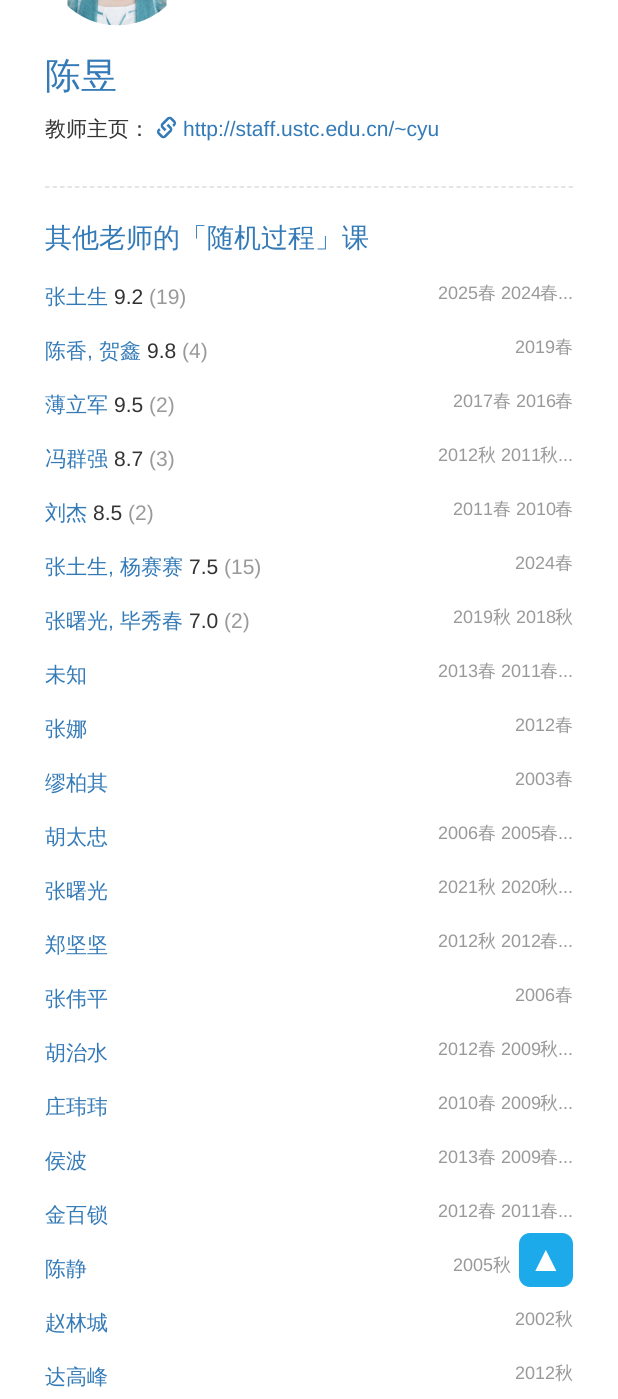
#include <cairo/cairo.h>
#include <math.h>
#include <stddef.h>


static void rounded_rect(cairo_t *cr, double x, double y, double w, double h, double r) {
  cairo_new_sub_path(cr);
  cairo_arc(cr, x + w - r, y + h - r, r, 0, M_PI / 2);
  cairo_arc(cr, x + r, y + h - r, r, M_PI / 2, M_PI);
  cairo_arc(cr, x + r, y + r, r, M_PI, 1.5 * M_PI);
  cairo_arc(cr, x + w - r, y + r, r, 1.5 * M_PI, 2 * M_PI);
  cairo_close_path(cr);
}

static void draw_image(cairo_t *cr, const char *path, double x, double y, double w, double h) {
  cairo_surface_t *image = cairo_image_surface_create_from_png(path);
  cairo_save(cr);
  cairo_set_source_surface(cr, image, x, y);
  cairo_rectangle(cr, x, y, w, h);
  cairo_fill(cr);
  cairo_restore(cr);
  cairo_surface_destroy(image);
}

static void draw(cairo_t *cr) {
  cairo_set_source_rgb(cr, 1, 1, 1);
  cairo_paint(cr);
  cairo_new_path(cr);
  cairo_move_to(cr, 45, 187);
  cairo_line_to(cr, 573, 187);
  cairo_set_source_rgb(cr, 221 / 255.0, 221 / 255.0, 221 / 255.0);
  cairo_set_line_width(cr, 1.5);
  cairo_set_dash(cr, (double[]){4.5, 2.98}, 2, 0);
  cairo_stroke(cr);
  draw_image(cr, "images/1.png", 67, 0, 100, 26);
  draw_image(cr, "images/2.png", 157, 116, 19, 23);
  cairo_set_source_rgb(cr, 28 / 255.0, 170 / 255.0, 234 / 255.0);
  rounded_rect(cr, 519, 1233, 54, 54, 11);
  cairo_fill(cr);
  cairo_select_font_face(cr, "WenQuanYi Zen Hei Medium", CAIRO_FONT_SLANT_NORMAL, CAIRO_FONT_WEIGHT_NORMAL);
  cairo_set_font_size(cr, 36);
  cairo_set_source_rgb(cr, 51 / 255.0, 122 / 255.0, 183 / 255.0);
  cairo_move_to(cr, 45, 88);
  cairo_show_text(cr, "陈昱");
  cairo_set_font_size(cr, 21);
  cairo_set_source_rgb(cr, 51 / 255.0, 51 / 255.0, 51 / 255.0);
  cairo_move_to(cr, 45, 136);
  cairo_show_text(cr, "教师主页：");
  cairo_select_font_face(cr, "Liberation Sans", CAIRO_FONT_SLANT_NORMAL, CAIRO_FONT_WEIGHT_NORMAL);
  cairo_set_source_rgb(cr, 51 / 255.0, 122 / 255.0, 183 / 255.0);
  cairo_move_to(cr, 183, 136);
  cairo_show_text(cr, "http://staff.ustc.edu.cn/~cyu");
  cairo_select_font_face(cr, "WenQuanYi Zen Hei Medium", CAIRO_FONT_SLANT_NORMAL, CAIRO_FONT_WEIGHT_NORMAL);
  cairo_set_font_size(cr, 27);
  cairo_move_to(cr, 45, 247);
  cairo_show_text(cr, "其他老师的「随机过程」课");
  cairo_set_font_size(cr, 21);
  cairo_move_to(cr, 45, 304);
  cairo_show_text(cr, "张土生");
  cairo_select_font_face(cr, "Liberation Sans", CAIRO_FONT_SLANT_NORMAL, CAIRO_FONT_WEIGHT_NORMAL);
  cairo_set_source_rgb(cr, 51 / 255.0, 51 / 255.0, 51 / 255.0);
  cairo_move_to(cr, 114, 304);
  cairo_show_text(cr, "9.2");
  cairo_set_source_rgb(cr, 153 / 255.0, 153 / 255.0, 153 / 255.0);
  cairo_move_to(cr, 149, 304);
  cairo_show_text(cr, "(19)");
  cairo_set_font_size(cr, 18);
  cairo_move_to(cr, 438, 299);
  cairo_show_text(cr, "2025");
  cairo_select_font_face(cr, "WenQuanYi Zen Hei Medium", CAIRO_FONT_SLANT_NORMAL, CAIRO_FONT_WEIGHT_NORMAL);
  cairo_move_to(cr, 478, 299);
  cairo_show_text(cr, "春");
  cairo_select_font_face(cr, "Liberation Sans", CAIRO_FONT_SLANT_NORMAL, CAIRO_FONT_WEIGHT_NORMAL);
  cairo_move_to(cr, 501, 299);
  cairo_show_text(cr, "2024");
  cairo_select_font_face(cr, "WenQuanYi Zen Hei Medium", CAIRO_FONT_SLANT_NORMAL, CAIRO_FONT_WEIGHT_NORMAL);
  cairo_move_to(cr, 540, 299);
  cairo_show_text(cr, "春");
  cairo_select_font_face(cr, "Liberation Sans", CAIRO_FONT_SLANT_NORMAL, CAIRO_FONT_WEIGHT_NORMAL);
  cairo_move_to(cr, 558, 299);
  cairo_show_text(cr, "...");
  cairo_select_font_face(cr, "WenQuanYi Zen Hei Medium", CAIRO_FONT_SLANT_NORMAL, CAIRO_FONT_WEIGHT_NORMAL);
  cairo_set_font_size(cr, 21);
  cairo_set_source_rgb(cr, 51 / 255.0, 122 / 255.0, 183 / 255.0);
  cairo_move_to(cr, 45, 358);
  cairo_show_text(cr, "陈香");
  cairo_select_font_face(cr, "Liberation Sans", CAIRO_FONT_SLANT_NORMAL, CAIRO_FONT_WEIGHT_NORMAL);
  cairo_move_to(cr, 87, 358);
  cairo_show_text(cr, ",");
  cairo_select_font_face(cr, "WenQuanYi Zen Hei Medium", CAIRO_FONT_SLANT_NORMAL, CAIRO_FONT_WEIGHT_NORMAL);
  cairo_move_to(cr, 99, 358);
  cairo_show_text(cr, "贺鑫");
  cairo_select_font_face(cr, "Liberation Sans", CAIRO_FONT_SLANT_NORMAL, CAIRO_FONT_WEIGHT_NORMAL);
  cairo_set_source_rgb(cr, 51 / 255.0, 51 / 255.0, 51 / 255.0);
  cairo_move_to(cr, 147, 358);
  cairo_show_text(cr, "9.8");
  cairo_set_source_rgb(cr, 153 / 255.0, 153 / 255.0, 153 / 255.0);
  cairo_move_to(cr, 182, 358);
  cairo_show_text(cr, "(4)");
  cairo_set_font_size(cr, 18);
  cairo_move_to(cr, 515, 353);
  cairo_show_text(cr, "2019");
  cairo_select_font_face(cr, "WenQuanYi Zen Hei Medium", CAIRO_FONT_SLANT_NORMAL, CAIRO_FONT_WEIGHT_NORMAL);
  cairo_move_to(cr, 555, 353);
  cairo_show_text(cr, "春");
  cairo_set_font_size(cr, 21);
  cairo_set_source_rgb(cr, 51 / 255.0, 122 / 255.0, 183 / 255.0);
  cairo_move_to(cr, 45, 412);
  cairo_show_text(cr, "薄立军");
  cairo_select_font_face(cr, "Liberation Sans", CAIRO_FONT_SLANT_NORMAL, CAIRO_FONT_WEIGHT_NORMAL);
  cairo_set_source_rgb(cr, 51 / 255.0, 51 / 255.0, 51 / 255.0);
  cairo_move_to(cr, 114, 412);
  cairo_show_text(cr, "9.5");
  cairo_set_source_rgb(cr, 153 / 255.0, 153 / 255.0, 153 / 255.0);
  cairo_move_to(cr, 149, 412);
  cairo_show_text(cr, "(2)");
  cairo_set_font_size(cr, 18);
  cairo_move_to(cr, 453, 407);
  cairo_show_text(cr, "2017");
  cairo_select_font_face(cr, "WenQuanYi Zen Hei Medium", CAIRO_FONT_SLANT_NORMAL, CAIRO_FONT_WEIGHT_NORMAL);
  cairo_move_to(cr, 493, 407);
  cairo_show_text(cr, "春");
  cairo_select_font_face(cr, "Liberation Sans", CAIRO_FONT_SLANT_NORMAL, CAIRO_FONT_WEIGHT_NORMAL);
  cairo_move_to(cr, 516, 407);
  cairo_show_text(cr, "2016");
  cairo_select_font_face(cr, "WenQuanYi Zen Hei Medium", CAIRO_FONT_SLANT_NORMAL, CAIRO_FONT_WEIGHT_NORMAL);
  cairo_move_to(cr, 555, 407);
  cairo_show_text(cr, "春");
  cairo_set_font_size(cr, 21);
  cairo_set_source_rgb(cr, 51 / 255.0, 122 / 255.0, 183 / 255.0);
  cairo_move_to(cr, 45, 466);
  cairo_show_text(cr, "冯群强");
  cairo_select_font_face(cr, "Liberation Sans", CAIRO_FONT_SLANT_NORMAL, CAIRO_FONT_WEIGHT_NORMAL);
  cairo_set_source_rgb(cr, 51 / 255.0, 51 / 255.0, 51 / 255.0);
  cairo_move_to(cr, 114, 466);
  cairo_show_text(cr, "8.7");
  cairo_set_source_rgb(cr, 153 / 255.0, 153 / 255.0, 153 / 255.0);
  cairo_move_to(cr, 149, 466);
  cairo_show_text(cr, "(3)");
  cairo_set_font_size(cr, 18);
  cairo_move_to(cr, 438, 461);
  cairo_show_text(cr, "2012");
  cairo_select_font_face(cr, "WenQuanYi Zen Hei Medium", CAIRO_FONT_SLANT_NORMAL, CAIRO_FONT_WEIGHT_NORMAL);
  cairo_move_to(cr, 478, 461);
  cairo_show_text(cr, "秋");
  cairo_select_font_face(cr, "Liberation Sans", CAIRO_FONT_SLANT_NORMAL, CAIRO_FONT_WEIGHT_NORMAL);
  cairo_move_to(cr, 501, 461);
  cairo_show_text(cr, "2011");
  cairo_select_font_face(cr, "WenQuanYi Zen Hei Medium", CAIRO_FONT_SLANT_NORMAL, CAIRO_FONT_WEIGHT_NORMAL);
  cairo_move_to(cr, 540, 461);
  cairo_show_text(cr, "秋");
  cairo_select_font_face(cr, "Liberation Sans", CAIRO_FONT_SLANT_NORMAL, CAIRO_FONT_WEIGHT_NORMAL);
  cairo_move_to(cr, 558, 461);
  cairo_show_text(cr, "...");
  cairo_select_font_face(cr, "WenQuanYi Zen Hei Medium", CAIRO_FONT_SLANT_NORMAL, CAIRO_FONT_WEIGHT_NORMAL);
  cairo_set_font_size(cr, 21);
  cairo_set_source_rgb(cr, 51 / 255.0, 122 / 255.0, 183 / 255.0);
  cairo_move_to(cr, 45, 520);
  cairo_show_text(cr, "刘杰");
  cairo_select_font_face(cr, "Liberation Sans", CAIRO_FONT_SLANT_NORMAL, CAIRO_FONT_WEIGHT_NORMAL);
  cairo_set_source_rgb(cr, 51 / 255.0, 51 / 255.0, 51 / 255.0);
  cairo_move_to(cr, 93, 520);
  cairo_show_text(cr, "8.5");
  cairo_set_source_rgb(cr, 153 / 255.0, 153 / 255.0, 153 / 255.0);
  cairo_move_to(cr, 128, 520);
  cairo_show_text(cr, "(2)");
  cairo_set_font_size(cr, 18);
  cairo_move_to(cr, 453, 515);
  cairo_show_text(cr, "2011");
  cairo_select_font_face(cr, "WenQuanYi Zen Hei Medium", CAIRO_FONT_SLANT_NORMAL, CAIRO_FONT_WEIGHT_NORMAL);
  cairo_move_to(cr, 493, 515);
  cairo_show_text(cr, "春");
  cairo_select_font_face(cr, "Liberation Sans", CAIRO_FONT_SLANT_NORMAL, CAIRO_FONT_WEIGHT_NORMAL);
  cairo_move_to(cr, 516, 515);
  cairo_show_text(cr, "2010");
  cairo_select_font_face(cr, "WenQuanYi Zen Hei Medium", CAIRO_FONT_SLANT_NORMAL, CAIRO_FONT_WEIGHT_NORMAL);
  cairo_move_to(cr, 555, 515);
  cairo_show_text(cr, "春");
  cairo_set_font_size(cr, 21);
  cairo_set_source_rgb(cr, 51 / 255.0, 122 / 255.0, 183 / 255.0);
  cairo_move_to(cr, 45, 574);
  cairo_show_text(cr, "张土生");
  cairo_select_font_face(cr, "Liberation Sans", CAIRO_FONT_SLANT_NORMAL, CAIRO_FONT_WEIGHT_NORMAL);
  cairo_move_to(cr, 108, 574);
  cairo_show_text(cr, ",");
  cairo_select_font_face(cr, "WenQuanYi Zen Hei Medium", CAIRO_FONT_SLANT_NORMAL, CAIRO_FONT_WEIGHT_NORMAL);
  cairo_move_to(cr, 120, 574);
  cairo_show_text(cr, "杨赛赛");
  cairo_select_font_face(cr, "Liberation Sans", CAIRO_FONT_SLANT_NORMAL, CAIRO_FONT_WEIGHT_NORMAL);
  cairo_set_source_rgb(cr, 51 / 255.0, 51 / 255.0, 51 / 255.0);
  cairo_move_to(cr, 189, 574);
  cairo_show_text(cr, "7.5");
  cairo_set_source_rgb(cr, 153 / 255.0, 153 / 255.0, 153 / 255.0);
  cairo_move_to(cr, 224, 574);
  cairo_show_text(cr, "(15)");
  cairo_set_font_size(cr, 18);
  cairo_move_to(cr, 515, 569);
  cairo_show_text(cr, "2024");
  cairo_select_font_face(cr, "WenQuanYi Zen Hei Medium", CAIRO_FONT_SLANT_NORMAL, CAIRO_FONT_WEIGHT_NORMAL);
  cairo_move_to(cr, 555, 569);
  cairo_show_text(cr, "春");
  cairo_set_font_size(cr, 21);
  cairo_set_source_rgb(cr, 51 / 255.0, 122 / 255.0, 183 / 255.0);
  cairo_move_to(cr, 45, 628);
  cairo_show_text(cr, "张曙光");
  cairo_select_font_face(cr, "Liberation Sans", CAIRO_FONT_SLANT_NORMAL, CAIRO_FONT_WEIGHT_NORMAL);
  cairo_move_to(cr, 108, 628);
  cairo_show_text(cr, ",");
  cairo_select_font_face(cr, "WenQuanYi Zen Hei Medium", CAIRO_FONT_SLANT_NORMAL, CAIRO_FONT_WEIGHT_NORMAL);
  cairo_move_to(cr, 120, 628);
  cairo_show_text(cr, "毕秀春");
  cairo_select_font_face(cr, "Liberation Sans", CAIRO_FONT_SLANT_NORMAL, CAIRO_FONT_WEIGHT_NORMAL);
  cairo_set_source_rgb(cr, 51 / 255.0, 51 / 255.0, 51 / 255.0);
  cairo_move_to(cr, 189, 628);
  cairo_show_text(cr, "7.0");
  cairo_set_source_rgb(cr, 153 / 255.0, 153 / 255.0, 153 / 255.0);
  cairo_move_to(cr, 224, 628);
  cairo_show_text(cr, "(2)");
  cairo_set_font_size(cr, 18);
  cairo_move_to(cr, 453, 623);
  cairo_show_text(cr, "2019");
  cairo_select_font_face(cr, "WenQuanYi Zen Hei Medium", CAIRO_FONT_SLANT_NORMAL, CAIRO_FONT_WEIGHT_NORMAL);
  cairo_move_to(cr, 493, 623);
  cairo_show_text(cr, "秋");
  cairo_select_font_face(cr, "Liberation Sans", CAIRO_FONT_SLANT_NORMAL, CAIRO_FONT_WEIGHT_NORMAL);
  cairo_move_to(cr, 516, 623);
  cairo_show_text(cr, "2018");
  cairo_select_font_face(cr, "WenQuanYi Zen Hei Medium", CAIRO_FONT_SLANT_NORMAL, CAIRO_FONT_WEIGHT_NORMAL);
  cairo_move_to(cr, 555, 623);
  cairo_show_text(cr, "秋");
  cairo_set_font_size(cr, 21);
  cairo_set_source_rgb(cr, 51 / 255.0, 122 / 255.0, 183 / 255.0);
  cairo_move_to(cr, 45, 682);
  cairo_show_text(cr, "未知");
  cairo_select_font_face(cr, "Liberation Sans", CAIRO_FONT_SLANT_NORMAL, CAIRO_FONT_WEIGHT_NORMAL);
  cairo_set_font_size(cr, 18);
  cairo_set_source_rgb(cr, 153 / 255.0, 153 / 255.0, 153 / 255.0);
  cairo_move_to(cr, 438, 677);
  cairo_show_text(cr, "2013");
  cairo_select_font_face(cr, "WenQuanYi Zen Hei Medium", CAIRO_FONT_SLANT_NORMAL, CAIRO_FONT_WEIGHT_NORMAL);
  cairo_move_to(cr, 478, 677);
  cairo_show_text(cr, "春");
  cairo_select_font_face(cr, "Liberation Sans", CAIRO_FONT_SLANT_NORMAL, CAIRO_FONT_WEIGHT_NORMAL);
  cairo_move_to(cr, 501, 677);
  cairo_show_text(cr, "2011");
  cairo_select_font_face(cr, "WenQuanYi Zen Hei Medium", CAIRO_FONT_SLANT_NORMAL, CAIRO_FONT_WEIGHT_NORMAL);
  cairo_move_to(cr, 540, 677);
  cairo_show_text(cr, "春");
  cairo_select_font_face(cr, "Liberation Sans", CAIRO_FONT_SLANT_NORMAL, CAIRO_FONT_WEIGHT_NORMAL);
  cairo_move_to(cr, 558, 677);
  cairo_show_text(cr, "...");
  cairo_select_font_face(cr, "WenQuanYi Zen Hei Medium", CAIRO_FONT_SLANT_NORMAL, CAIRO_FONT_WEIGHT_NORMAL);
  cairo_set_font_size(cr, 21);
  cairo_set_source_rgb(cr, 51 / 255.0, 122 / 255.0, 183 / 255.0);
  cairo_move_to(cr, 45, 736);
  cairo_show_text(cr, "张娜");
  cairo_select_font_face(cr, "Liberation Sans", CAIRO_FONT_SLANT_NORMAL, CAIRO_FONT_WEIGHT_NORMAL);
  cairo_set_font_size(cr, 18);
  cairo_set_source_rgb(cr, 153 / 255.0, 153 / 255.0, 153 / 255.0);
  cairo_move_to(cr, 515, 731);
  cairo_show_text(cr, "2012");
  cairo_select_font_face(cr, "WenQuanYi Zen Hei Medium", CAIRO_FONT_SLANT_NORMAL, CAIRO_FONT_WEIGHT_NORMAL);
  cairo_move_to(cr, 555, 731);
  cairo_show_text(cr, "春");
  cairo_set_font_size(cr, 21);
  cairo_set_source_rgb(cr, 51 / 255.0, 122 / 255.0, 183 / 255.0);
  cairo_move_to(cr, 45, 790);
  cairo_show_text(cr, "缪柏其");
  cairo_select_font_face(cr, "Liberation Sans", CAIRO_FONT_SLANT_NORMAL, CAIRO_FONT_WEIGHT_NORMAL);
  cairo_set_font_size(cr, 18);
  cairo_set_source_rgb(cr, 153 / 255.0, 153 / 255.0, 153 / 255.0);
  cairo_move_to(cr, 515, 785);
  cairo_show_text(cr, "2003");
  cairo_select_font_face(cr, "WenQuanYi Zen Hei Medium", CAIRO_FONT_SLANT_NORMAL, CAIRO_FONT_WEIGHT_NORMAL);
  cairo_move_to(cr, 555, 785);
  cairo_show_text(cr, "春");
  cairo_set_font_size(cr, 21);
  cairo_set_source_rgb(cr, 51 / 255.0, 122 / 255.0, 183 / 255.0);
  cairo_move_to(cr, 45, 844);
  cairo_show_text(cr, "胡太忠");
  cairo_select_font_face(cr, "Liberation Sans", CAIRO_FONT_SLANT_NORMAL, CAIRO_FONT_WEIGHT_NORMAL);
  cairo_set_font_size(cr, 18);
  cairo_set_source_rgb(cr, 153 / 255.0, 153 / 255.0, 153 / 255.0);
  cairo_move_to(cr, 438, 839);
  cairo_show_text(cr, "2006");
  cairo_select_font_face(cr, "WenQuanYi Zen Hei Medium", CAIRO_FONT_SLANT_NORMAL, CAIRO_FONT_WEIGHT_NORMAL);
  cairo_move_to(cr, 478, 839);
  cairo_show_text(cr, "春");
  cairo_select_font_face(cr, "Liberation Sans", CAIRO_FONT_SLANT_NORMAL, CAIRO_FONT_WEIGHT_NORMAL);
  cairo_move_to(cr, 501, 839);
  cairo_show_text(cr, "2005");
  cairo_select_font_face(cr, "WenQuanYi Zen Hei Medium", CAIRO_FONT_SLANT_NORMAL, CAIRO_FONT_WEIGHT_NORMAL);
  cairo_move_to(cr, 540, 839);
  cairo_show_text(cr, "春");
  cairo_select_font_face(cr, "Liberation Sans", CAIRO_FONT_SLANT_NORMAL, CAIRO_FONT_WEIGHT_NORMAL);
  cairo_move_to(cr, 558, 839);
  cairo_show_text(cr, "...");
  cairo_select_font_face(cr, "WenQuanYi Zen Hei Medium", CAIRO_FONT_SLANT_NORMAL, CAIRO_FONT_WEIGHT_NORMAL);
  cairo_set_font_size(cr, 21);
  cairo_set_source_rgb(cr, 51 / 255.0, 122 / 255.0, 183 / 255.0);
  cairo_move_to(cr, 45, 898);
  cairo_show_text(cr, "张曙光");
  cairo_select_font_face(cr, "Liberation Sans", CAIRO_FONT_SLANT_NORMAL, CAIRO_FONT_WEIGHT_NORMAL);
  cairo_set_font_size(cr, 18);
  cairo_set_source_rgb(cr, 153 / 255.0, 153 / 255.0, 153 / 255.0);
  cairo_move_to(cr, 438, 893);
  cairo_show_text(cr, "2021");
  cairo_select_font_face(cr, "WenQuanYi Zen Hei Medium", CAIRO_FONT_SLANT_NORMAL, CAIRO_FONT_WEIGHT_NORMAL);
  cairo_move_to(cr, 478, 893);
  cairo_show_text(cr, "秋");
  cairo_select_font_face(cr, "Liberation Sans", CAIRO_FONT_SLANT_NORMAL, CAIRO_FONT_WEIGHT_NORMAL);
  cairo_move_to(cr, 501, 893);
  cairo_show_text(cr, "2020");
  cairo_select_font_face(cr, "WenQuanYi Zen Hei Medium", CAIRO_FONT_SLANT_NORMAL, CAIRO_FONT_WEIGHT_NORMAL);
  cairo_move_to(cr, 540, 893);
  cairo_show_text(cr, "秋");
  cairo_select_font_face(cr, "Liberation Sans", CAIRO_FONT_SLANT_NORMAL, CAIRO_FONT_WEIGHT_NORMAL);
  cairo_move_to(cr, 558, 893);
  cairo_show_text(cr, "...");
  cairo_select_font_face(cr, "WenQuanYi Zen Hei Medium", CAIRO_FONT_SLANT_NORMAL, CAIRO_FONT_WEIGHT_NORMAL);
  cairo_set_font_size(cr, 21);
  cairo_set_source_rgb(cr, 51 / 255.0, 122 / 255.0, 183 / 255.0);
  cairo_move_to(cr, 45, 952);
  cairo_show_text(cr, "郑坚坚");
  cairo_select_font_face(cr, "Liberation Sans", CAIRO_FONT_SLANT_NORMAL, CAIRO_FONT_WEIGHT_NORMAL);
  cairo_set_font_size(cr, 18);
  cairo_set_source_rgb(cr, 153 / 255.0, 153 / 255.0, 153 / 255.0);
  cairo_move_to(cr, 438, 947);
  cairo_show_text(cr, "2012");
  cairo_select_font_face(cr, "WenQuanYi Zen Hei Medium", CAIRO_FONT_SLANT_NORMAL, CAIRO_FONT_WEIGHT_NORMAL);
  cairo_move_to(cr, 478, 947);
  cairo_show_text(cr, "秋");
  cairo_select_font_face(cr, "Liberation Sans", CAIRO_FONT_SLANT_NORMAL, CAIRO_FONT_WEIGHT_NORMAL);
  cairo_move_to(cr, 501, 947);
  cairo_show_text(cr, "2012");
  cairo_select_font_face(cr, "WenQuanYi Zen Hei Medium", CAIRO_FONT_SLANT_NORMAL, CAIRO_FONT_WEIGHT_NORMAL);
  cairo_move_to(cr, 540, 947);
  cairo_show_text(cr, "春");
  cairo_select_font_face(cr, "Liberation Sans", CAIRO_FONT_SLANT_NORMAL, CAIRO_FONT_WEIGHT_NORMAL);
  cairo_move_to(cr, 558, 947);
  cairo_show_text(cr, "...");
  cairo_select_font_face(cr, "WenQuanYi Zen Hei Medium", CAIRO_FONT_SLANT_NORMAL, CAIRO_FONT_WEIGHT_NORMAL);
  cairo_set_font_size(cr, 21);
  cairo_set_source_rgb(cr, 51 / 255.0, 122 / 255.0, 183 / 255.0);
  cairo_move_to(cr, 45, 1006);
  cairo_show_text(cr, "张伟平");
  cairo_select_font_face(cr, "Liberation Sans", CAIRO_FONT_SLANT_NORMAL, CAIRO_FONT_WEIGHT_NORMAL);
  cairo_set_font_size(cr, 18);
  cairo_set_source_rgb(cr, 153 / 255.0, 153 / 255.0, 153 / 255.0);
  cairo_move_to(cr, 515, 1001);
  cairo_show_text(cr, "2006");
  cairo_select_font_face(cr, "WenQuanYi Zen Hei Medium", CAIRO_FONT_SLANT_NORMAL, CAIRO_FONT_WEIGHT_NORMAL);
  cairo_move_to(cr, 555, 1001);
  cairo_show_text(cr, "春");
  cairo_set_font_size(cr, 21);
  cairo_set_source_rgb(cr, 51 / 255.0, 122 / 255.0, 183 / 255.0);
  cairo_move_to(cr, 45, 1060);
  cairo_show_text(cr, "胡治水");
  cairo_select_font_face(cr, "Liberation Sans", CAIRO_FONT_SLANT_NORMAL, CAIRO_FONT_WEIGHT_NORMAL);
  cairo_set_font_size(cr, 18);
  cairo_set_source_rgb(cr, 153 / 255.0, 153 / 255.0, 153 / 255.0);
  cairo_move_to(cr, 438, 1055);
  cairo_show_text(cr, "2012");
  cairo_select_font_face(cr, "WenQuanYi Zen Hei Medium", CAIRO_FONT_SLANT_NORMAL, CAIRO_FONT_WEIGHT_NORMAL);
  cairo_move_to(cr, 478, 1055);
  cairo_show_text(cr, "春");
  cairo_select_font_face(cr, "Liberation Sans", CAIRO_FONT_SLANT_NORMAL, CAIRO_FONT_WEIGHT_NORMAL);
  cairo_move_to(cr, 501, 1055);
  cairo_show_text(cr, "2009");
  cairo_select_font_face(cr, "WenQuanYi Zen Hei Medium", CAIRO_FONT_SLANT_NORMAL, CAIRO_FONT_WEIGHT_NORMAL);
  cairo_move_to(cr, 540, 1055);
  cairo_show_text(cr, "秋");
  cairo_select_font_face(cr, "Liberation Sans", CAIRO_FONT_SLANT_NORMAL, CAIRO_FONT_WEIGHT_NORMAL);
  cairo_move_to(cr, 558, 1055);
  cairo_show_text(cr, "...");
  cairo_select_font_face(cr, "WenQuanYi Zen Hei Medium", CAIRO_FONT_SLANT_NORMAL, CAIRO_FONT_WEIGHT_NORMAL);
  cairo_set_font_size(cr, 21);
  cairo_set_source_rgb(cr, 51 / 255.0, 122 / 255.0, 183 / 255.0);
  cairo_move_to(cr, 45, 1114);
  cairo_show_text(cr, "庄玮玮");
  cairo_select_font_face(cr, "Liberation Sans", CAIRO_FONT_SLANT_NORMAL, CAIRO_FONT_WEIGHT_NORMAL);
  cairo_set_font_size(cr, 18);
  cairo_set_source_rgb(cr, 153 / 255.0, 153 / 255.0, 153 / 255.0);
  cairo_move_to(cr, 438, 1109);
  cairo_show_text(cr, "2010");
  cairo_select_font_face(cr, "WenQuanYi Zen Hei Medium", CAIRO_FONT_SLANT_NORMAL, CAIRO_FONT_WEIGHT_NORMAL);
  cairo_move_to(cr, 478, 1109);
  cairo_show_text(cr, "春");
  cairo_select_font_face(cr, "Liberation Sans", CAIRO_FONT_SLANT_NORMAL, CAIRO_FONT_WEIGHT_NORMAL);
  cairo_move_to(cr, 501, 1109);
  cairo_show_text(cr, "2009");
  cairo_select_font_face(cr, "WenQuanYi Zen Hei Medium", CAIRO_FONT_SLANT_NORMAL, CAIRO_FONT_WEIGHT_NORMAL);
  cairo_move_to(cr, 540, 1109);
  cairo_show_text(cr, "秋");
  cairo_select_font_face(cr, "Liberation Sans", CAIRO_FONT_SLANT_NORMAL, CAIRO_FONT_WEIGHT_NORMAL);
  cairo_move_to(cr, 558, 1109);
  cairo_show_text(cr, "...");
  cairo_select_font_face(cr, "WenQuanYi Zen Hei Medium", CAIRO_FONT_SLANT_NORMAL, CAIRO_FONT_WEIGHT_NORMAL);
  cairo_set_font_size(cr, 21);
  cairo_set_source_rgb(cr, 51 / 255.0, 122 / 255.0, 183 / 255.0);
  cairo_move_to(cr, 45, 1168);
  cairo_show_text(cr, "侯波");
  cairo_select_font_face(cr, "Liberation Sans", CAIRO_FONT_SLANT_NORMAL, CAIRO_FONT_WEIGHT_NORMAL);
  cairo_set_font_size(cr, 18);
  cairo_set_source_rgb(cr, 153 / 255.0, 153 / 255.0, 153 / 255.0);
  cairo_move_to(cr, 438, 1163);
  cairo_show_text(cr, "2013");
  cairo_select_font_face(cr, "WenQuanYi Zen Hei Medium", CAIRO_FONT_SLANT_NORMAL, CAIRO_FONT_WEIGHT_NORMAL);
  cairo_move_to(cr, 478, 1163);
  cairo_show_text(cr, "春");
  cairo_select_font_face(cr, "Liberation Sans", CAIRO_FONT_SLANT_NORMAL, CAIRO_FONT_WEIGHT_NORMAL);
  cairo_move_to(cr, 501, 1163);
  cairo_show_text(cr, "2009");
  cairo_select_font_face(cr, "WenQuanYi Zen Hei Medium", CAIRO_FONT_SLANT_NORMAL, CAIRO_FONT_WEIGHT_NORMAL);
  cairo_move_to(cr, 540, 1163);
  cairo_show_text(cr, "春");
  cairo_select_font_face(cr, "Liberation Sans", CAIRO_FONT_SLANT_NORMAL, CAIRO_FONT_WEIGHT_NORMAL);
  cairo_move_to(cr, 558, 1163);
  cairo_show_text(cr, "...");
  cairo_select_font_face(cr, "WenQuanYi Zen Hei Medium", CAIRO_FONT_SLANT_NORMAL, CAIRO_FONT_WEIGHT_NORMAL);
  cairo_set_font_size(cr, 21);
  cairo_set_source_rgb(cr, 51 / 255.0, 122 / 255.0, 183 / 255.0);
  cairo_move_to(cr, 45, 1222);
  cairo_show_text(cr, "金百锁");
  cairo_select_font_face(cr, "Liberation Sans", CAIRO_FONT_SLANT_NORMAL, CAIRO_FONT_WEIGHT_NORMAL);
  cairo_set_font_size(cr, 18);
  cairo_set_source_rgb(cr, 153 / 255.0, 153 / 255.0, 153 / 255.0);
  cairo_move_to(cr, 438, 1217);
  cairo_show_text(cr, "2012");
  cairo_select_font_face(cr, "WenQuanYi Zen Hei Medium", CAIRO_FONT_SLANT_NORMAL, CAIRO_FONT_WEIGHT_NORMAL);
  cairo_move_to(cr, 478, 1217);
  cairo_show_text(cr, "春");
  cairo_select_font_face(cr, "Liberation Sans", CAIRO_FONT_SLANT_NORMAL, CAIRO_FONT_WEIGHT_NORMAL);
  cairo_move_to(cr, 501, 1217);
  cairo_show_text(cr, "2011");
  cairo_select_font_face(cr, "WenQuanYi Zen Hei Medium", CAIRO_FONT_SLANT_NORMAL, CAIRO_FONT_WEIGHT_NORMAL);
  cairo_move_to(cr, 540, 1217);
  cairo_show_text(cr, "春");
  cairo_select_font_face(cr, "Liberation Sans", CAIRO_FONT_SLANT_NORMAL, CAIRO_FONT_WEIGHT_NORMAL);
  cairo_move_to(cr, 558, 1217);
  cairo_show_text(cr, "...");
  cairo_select_font_face(cr, "WenQuanYi Zen Hei Medium", CAIRO_FONT_SLANT_NORMAL, CAIRO_FONT_WEIGHT_NORMAL);
  cairo_set_font_size(cr, 21);
  cairo_set_source_rgb(cr, 51 / 255.0, 122 / 255.0, 183 / 255.0);
  cairo_move_to(cr, 45, 1276);
  cairo_show_text(cr, "陈静");
  cairo_select_font_face(cr, "Liberation Sans", CAIRO_FONT_SLANT_NORMAL, CAIRO_FONT_WEIGHT_NORMAL);
  cairo_set_font_size(cr, 18);
  cairo_set_source_rgb(cr, 153 / 255.0, 153 / 255.0, 153 / 255.0);
  cairo_move_to(cr, 453, 1271);
  cairo_show_text(cr, "2005");
  cairo_select_font_face(cr, "WenQuanYi Zen Hei Medium", CAIRO_FONT_SLANT_NORMAL, CAIRO_FONT_WEIGHT_NORMAL);
  cairo_move_to(cr, 493, 1271);
  cairo_show_text(cr, "秋");
  cairo_set_font_size(cr, 21);
  cairo_set_source_rgb(cr, 51 / 255.0, 122 / 255.0, 183 / 255.0);
  cairo_move_to(cr, 45, 1330);
  cairo_show_text(cr, "赵林城");
  cairo_select_font_face(cr, "Liberation Sans", CAIRO_FONT_SLANT_NORMAL, CAIRO_FONT_WEIGHT_NORMAL);
  cairo_set_font_size(cr, 18);
  cairo_set_source_rgb(cr, 153 / 255.0, 153 / 255.0, 153 / 255.0);
  cairo_move_to(cr, 515, 1325);
  cairo_show_text(cr, "2002");
  cairo_select_font_face(cr, "WenQuanYi Zen Hei Medium", CAIRO_FONT_SLANT_NORMAL, CAIRO_FONT_WEIGHT_NORMAL);
  cairo_move_to(cr, 555, 1325);
  cairo_show_text(cr, "秋");
  cairo_set_font_size(cr, 21);
  cairo_set_source_rgb(cr, 51 / 255.0, 122 / 255.0, 183 / 255.0);
  cairo_move_to(cr, 45, 1384);
  cairo_show_text(cr, "达高峰");
  cairo_select_font_face(cr, "Liberation Sans", CAIRO_FONT_SLANT_NORMAL, CAIRO_FONT_WEIGHT_NORMAL);
  cairo_set_font_size(cr, 18);
  cairo_set_source_rgb(cr, 153 / 255.0, 153 / 255.0, 153 / 255.0);
  cairo_move_to(cr, 515, 1379);
  cairo_show_text(cr, "2012");
  cairo_select_font_face(cr, "WenQuanYi Zen Hei Medium", CAIRO_FONT_SLANT_NORMAL, CAIRO_FONT_WEIGHT_NORMAL);
  cairo_move_to(cr, 555, 1379);
  cairo_show_text(cr, "秋");
  cairo_select_font_face(cr, "Liberation Sans", CAIRO_FONT_SLANT_NORMAL, CAIRO_FONT_WEIGHT_NORMAL);
  cairo_set_font_size(cr, 36);
  cairo_set_source_rgb(cr, 1, 1, 1);
  cairo_move_to(cr, 528, 1271);
  cairo_show_text(cr, "▲");
}

int main(void) {
  cairo_surface_t *surface = cairo_image_surface_create(CAIRO_FORMAT_RGB24, 618, 1399);
  cairo_t *cr = cairo_create(surface);
  cairo_font_options_t *options = cairo_font_options_create();
  cairo_font_options_set_hint_metrics(options, CAIRO_HINT_METRICS_OFF);
  cairo_font_options_set_hint_style(options, CAIRO_HINT_STYLE_NONE);
  cairo_set_font_options(cr, options);
  cairo_set_miter_limit(cr, 4);
  draw(cr);
  cairo_surface_write_to_png(surface, "out.png");
  cairo_font_options_destroy(options);
  cairo_destroy(cr);
  cairo_surface_destroy(surface);
  return 0;
}
